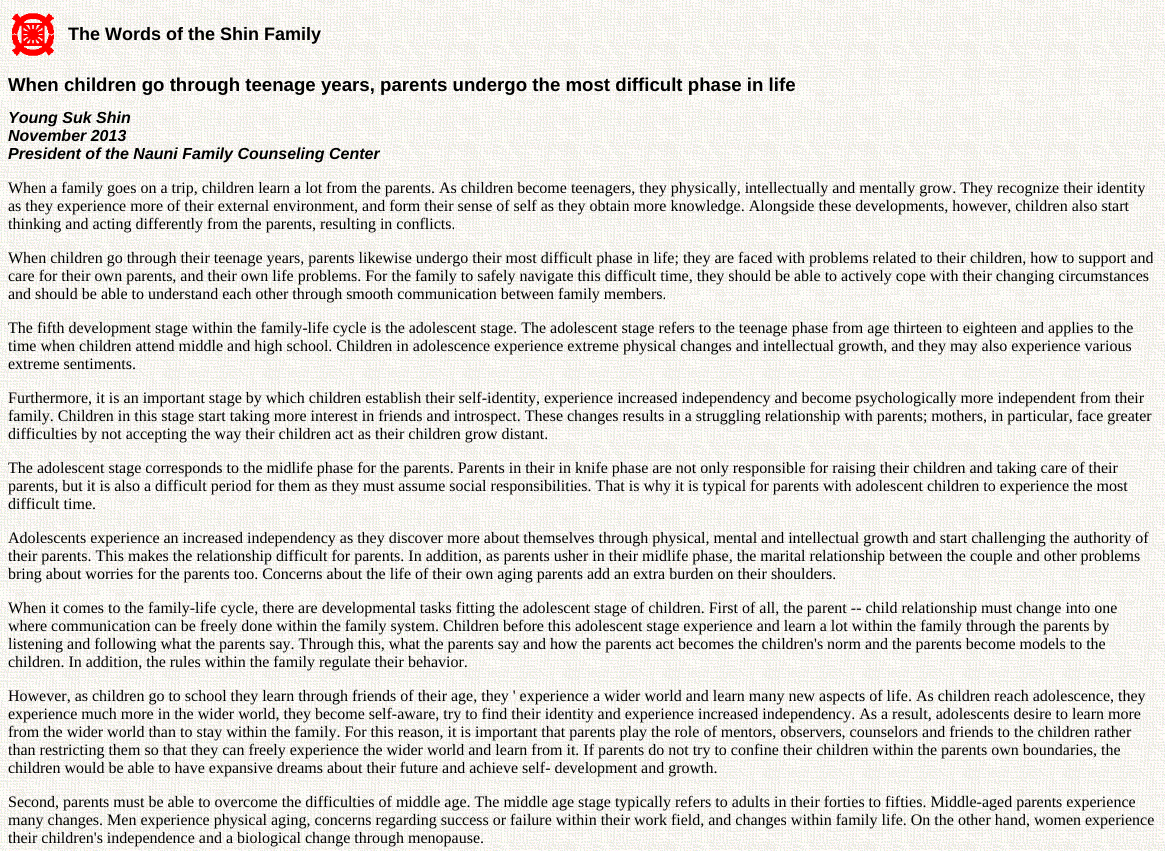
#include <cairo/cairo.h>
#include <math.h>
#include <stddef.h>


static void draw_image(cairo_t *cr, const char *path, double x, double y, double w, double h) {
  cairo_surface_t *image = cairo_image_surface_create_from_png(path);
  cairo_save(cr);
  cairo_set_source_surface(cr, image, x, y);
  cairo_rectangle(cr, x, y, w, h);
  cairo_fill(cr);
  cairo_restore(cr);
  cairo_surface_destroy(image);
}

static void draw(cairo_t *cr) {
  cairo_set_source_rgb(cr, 1, 1, 1);
  cairo_paint(cr);
  draw_image(cr, "images/1.png", 0, 0, 1165, 851);
  draw_image(cr, "images/2.png", 12, 13, 42, 43);
  cairo_select_font_face(cr, "Liberation Sans", CAIRO_FONT_SLANT_NORMAL, CAIRO_FONT_WEIGHT_BOLD);
  cairo_set_font_size(cr, 18);
  cairo_set_source_rgb(cr, 0, 0, 0);
  cairo_move_to(cr, 68, 40);
  cairo_show_text(cr, "The Words of the Shin Family");
  cairo_set_font_size(cr, 18.65);
  cairo_move_to(cr, 8, 91);
  cairo_show_text(cr, "When children go through teenage years, parents undergo the most difficult phase in life");
  cairo_select_font_face(cr, "Liberation Sans", CAIRO_FONT_SLANT_ITALIC, CAIRO_FONT_WEIGHT_BOLD);
  cairo_set_font_size(cr, 16);
  cairo_move_to(cr, 8, 123);
  cairo_show_text(cr, "Young Suk Shin");
  cairo_move_to(cr, 8, 141);
  cairo_show_text(cr, "November 2013");
  cairo_move_to(cr, 8, 159);
  cairo_show_text(cr, "President of the Nauni Family Counseling Center");
  cairo_select_font_face(cr, "Liberation Serif", CAIRO_FONT_SLANT_NORMAL, CAIRO_FONT_WEIGHT_NORMAL);
  cairo_move_to(cr, 8, 193);
  cairo_show_text(cr, "When a family goes on a trip, children learn a lot from the parents. As children become teenagers, they physically, intellectually and mentally grow. They recognize their identity");
  cairo_move_to(cr, 8, 211);
  cairo_show_text(cr, "as they experience more of their external environment, and form their sense of self as they obtain more knowledge. Alongside these developments, however, children also start");
  cairo_move_to(cr, 8, 229);
  cairo_show_text(cr, "thinking and acting differently from the parents, resulting in conflicts.");
  cairo_move_to(cr, 8, 263);
  cairo_show_text(cr, "When children go through their teenage years, parents likewise undergo their most difficult phase in life; they are faced with problems related to their children, how to support and");
  cairo_move_to(cr, 8, 281);
  cairo_show_text(cr, "care for their own parents, and their own life problems. For the family to safely navigate this difficult time, they should be able to actively cope with their changing circumstances");
  cairo_move_to(cr, 8, 299);
  cairo_show_text(cr, "and should be able to understand each other through smooth communication between family members.");
  cairo_move_to(cr, 8, 333);
  cairo_show_text(cr, "The fifth development stage within the family-life cycle is the adolescent stage. The adolescent stage refers to the teenage phase from age thirteen to eighteen and applies to the");
  cairo_move_to(cr, 8, 351);
  cairo_show_text(cr, "time when children attend middle and high school. Children in adolescence experience extreme physical changes and intellectual growth, and they may also experience various");
  cairo_move_to(cr, 8, 369);
  cairo_show_text(cr, "extreme sentiments.");
  cairo_move_to(cr, 8, 403);
  cairo_show_text(cr, "Furthermore, it is an important stage by which children establish their self-identity, experience increased independency and become psychologically more independent from their");
  cairo_move_to(cr, 8, 421);
  cairo_show_text(cr, "family. Children in this stage start taking more interest in friends and introspect. These changes results in a struggling relationship with parents; mothers, in particular, face greater");
  cairo_move_to(cr, 8, 439);
  cairo_show_text(cr, "difficulties by not accepting the way their children act as their children grow distant.");
  cairo_move_to(cr, 8, 473);
  cairo_show_text(cr, "The adolescent stage corresponds to the midlife phase for the parents. Parents in their in knife phase are not only responsible for raising their children and taking care of their");
  cairo_move_to(cr, 8, 491);
  cairo_show_text(cr, "parents, but it is also a difficult period for them as they must assume social responsibilities. That is why it is typical for parents with adolescent children to experience the most");
  cairo_move_to(cr, 8, 509);
  cairo_show_text(cr, "difficult time.");
  cairo_move_to(cr, 8, 543);
  cairo_show_text(cr, "Adolescents experience an increased independency as they discover more about themselves through physical, mental and intellectual growth and start challenging the authority of");
  cairo_move_to(cr, 8, 561);
  cairo_show_text(cr, "their parents. This makes the relationship difficult for parents. In addition, as parents usher in their midlife phase, the marital relationship between the couple and other problems");
  cairo_move_to(cr, 8, 579);
  cairo_show_text(cr, "bring about worries for the parents too. Concerns about the life of their own aging parents add an extra burden on their shoulders.");
  cairo_move_to(cr, 8, 613);
  cairo_show_text(cr, "When it comes to the family-life cycle, there are developmental tasks fitting the adolescent stage of children. First of all, the parent -- child relationship must change into one");
  cairo_move_to(cr, 8, 631);
  cairo_show_text(cr, "where communication can be freely done within the family system. Children before this adolescent stage experience and learn a lot within the family through the parents by");
  cairo_move_to(cr, 8, 649);
  cairo_show_text(cr, "listening and following what the parents say. Through this, what the parents say and how the parents act becomes the children's norm and the parents become models to the");
  cairo_move_to(cr, 8, 667);
  cairo_show_text(cr, "children. In addition, the rules within the family regulate their behavior.");
  cairo_move_to(cr, 8, 701);
  cairo_show_text(cr, "However, as children go to school they learn through friends of their age, they ' experience a wider world and learn many new aspects of life. As children reach adolescence, they");
  cairo_move_to(cr, 8, 719);
  cairo_show_text(cr, "experience much more in the wider world, they become self-aware, try to find their identity and experience increased independency. As a result, adolescents desire to learn more");
  cairo_move_to(cr, 8, 737);
  cairo_show_text(cr, "from the wider world than to stay within the family. For this reason, it is important that parents play the role of mentors, observers, counselors and friends to the children rather");
  cairo_move_to(cr, 8, 755);
  cairo_show_text(cr, "than restricting them so that they can freely experience the wider world and learn from it. If parents do not try to confine their children within the parents own boundaries, the");
  cairo_move_to(cr, 8, 773);
  cairo_show_text(cr, "children would be able to have expansive dreams about their future and achieve self- development and growth.");
  cairo_move_to(cr, 8, 807);
  cairo_show_text(cr, "Second, parents must be able to overcome the difficulties of middle age. The middle age stage typically refers to adults in their forties to fifties. Middle-aged parents experience");
  cairo_move_to(cr, 8, 825);
  cairo_show_text(cr, "many changes. Men experience physical aging, concerns regarding success or failure within their work field, and changes within family life. On the other hand, women experience");
  cairo_move_to(cr, 8, 843);
  cairo_show_text(cr, "their children's independence and a biological change through menopause.");
}

int main(void) {
  cairo_surface_t *surface = cairo_image_surface_create(CAIRO_FORMAT_RGB24, 1165, 851);
  cairo_t *cr = cairo_create(surface);
  cairo_font_options_t *options = cairo_font_options_create();
  cairo_font_options_set_hint_metrics(options, CAIRO_HINT_METRICS_OFF);
  cairo_font_options_set_hint_style(options, CAIRO_HINT_STYLE_NONE);
  cairo_set_font_options(cr, options);
  cairo_set_miter_limit(cr, 4);
  draw(cr);
  cairo_surface_write_to_png(surface, "out.png");
  cairo_font_options_destroy(options);
  cairo_destroy(cr);
  cairo_surface_destroy(surface);
  return 0;
}
